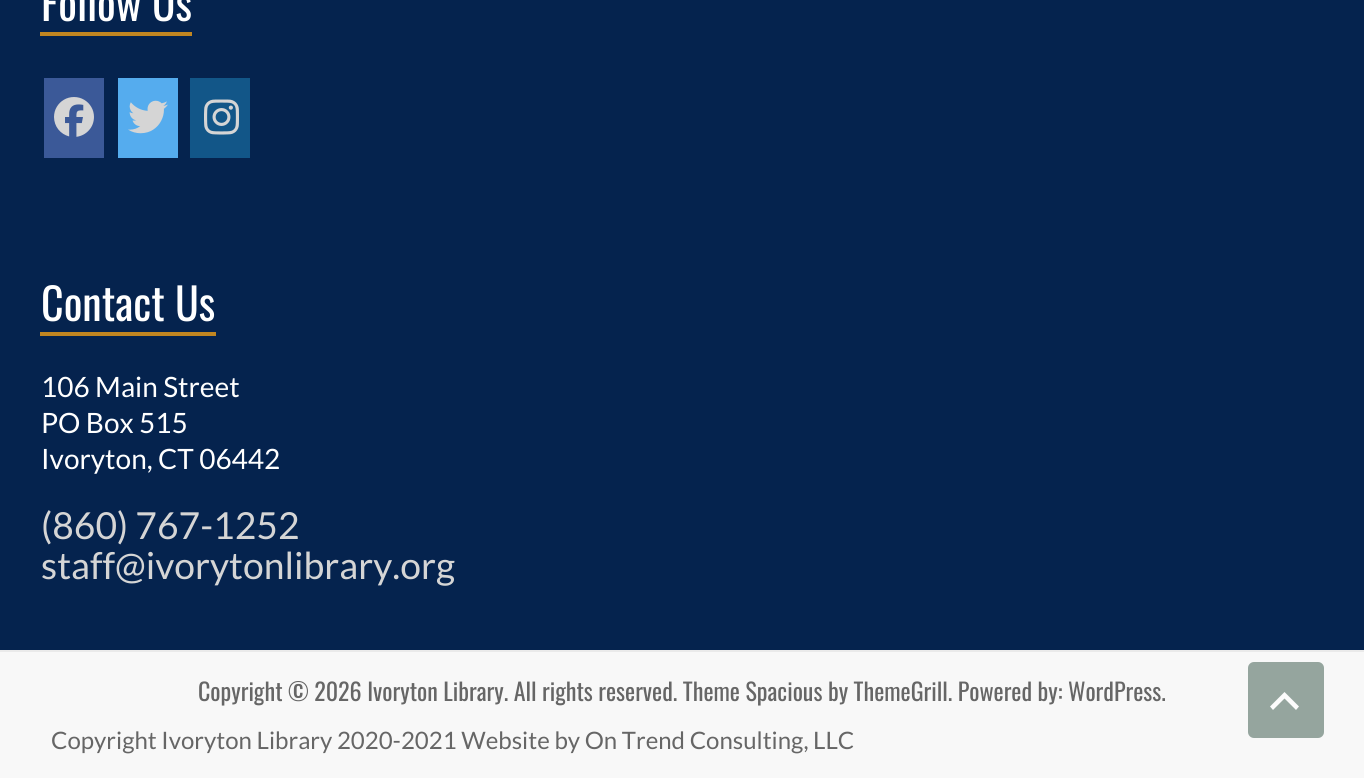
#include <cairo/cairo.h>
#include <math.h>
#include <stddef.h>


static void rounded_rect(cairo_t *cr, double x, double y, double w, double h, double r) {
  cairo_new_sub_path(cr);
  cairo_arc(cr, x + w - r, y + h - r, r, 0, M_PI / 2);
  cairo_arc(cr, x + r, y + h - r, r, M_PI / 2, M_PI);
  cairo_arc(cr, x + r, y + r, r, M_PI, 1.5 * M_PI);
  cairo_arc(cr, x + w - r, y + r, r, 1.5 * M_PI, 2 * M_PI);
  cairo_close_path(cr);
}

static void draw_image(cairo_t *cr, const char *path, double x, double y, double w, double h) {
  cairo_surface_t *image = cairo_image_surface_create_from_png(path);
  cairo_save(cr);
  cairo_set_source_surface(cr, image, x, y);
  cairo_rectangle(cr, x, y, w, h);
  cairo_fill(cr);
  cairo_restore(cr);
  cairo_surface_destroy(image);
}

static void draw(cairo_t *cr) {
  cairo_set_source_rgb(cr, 5 / 255.0, 35 / 255.0, 78 / 255.0);
  cairo_paint(cr);
  cairo_set_source_rgb(cr, 193 / 255.0, 134 / 255.0, 33 / 255.0);
  cairo_rectangle(cr, 40, 32, 152, 4);
  cairo_fill(cr);
  cairo_set_source_rgb(cr, 59 / 255.0, 89 / 255.0, 152 / 255.0);
  cairo_rectangle(cr, 44, 78, 60, 80);
  cairo_fill(cr);
  draw_image(cr, "images/1.png", 54, 97, 40, 40);
  cairo_set_source_rgb(cr, 85 / 255.0, 172 / 255.0, 238 / 255.0);
  cairo_rectangle(cr, 118, 78, 60, 80);
  cairo_fill(cr);
  draw_image(cr, "images/2.png", 128, 100, 40, 34);
  cairo_set_source_rgb(cr, 18 / 255.0, 86 / 255.0, 136 / 255.0);
  cairo_rectangle(cr, 190, 78, 60, 80);
  cairo_fill(cr);
  draw_image(cr, "images/3.png", 204, 99, 35, 36);
  cairo_set_source_rgb(cr, 193 / 255.0, 134 / 255.0, 33 / 255.0);
  cairo_rectangle(cr, 40, 332, 176, 4);
  cairo_fill(cr);
  cairo_set_source_rgb(cr, 248 / 255.0, 248 / 255.0, 248 / 255.0);
  cairo_rectangle(cr, 0, 652, 1364, 126);
  cairo_fill(cr);
  cairo_set_source_rgb(cr, 234 / 255.0, 234 / 255.0, 234 / 255.0);
  cairo_rectangle(cr, 0, 650, 1364, 2);
  cairo_fill(cr);
  cairo_set_source_rgb(cr, 149 / 255.0, 165 / 255.0, 158 / 255.0);
  rounded_rect(cr, 1248, 662, 76, 76, 6);
  cairo_fill(cr);
  cairo_set_source_rgb(cr, 252 / 255.0, 252 / 255.0, 252 / 255.0);
  cairo_new_path(cr);
  cairo_move_to(cr, 1296, 710);
  cairo_line_to(cr, 1284.5, 698.5);
  cairo_line_to(cr, 1273, 710);
  cairo_line_to(cr, 1270, 706.5);
  cairo_line_to(cr, 1284.5, 692);
  cairo_line_to(cr, 1299, 706.5);
  cairo_close_path(cr);
  cairo_fill(cr);
  cairo_select_font_face(cr, "Oswald", CAIRO_FONT_SLANT_NORMAL, CAIRO_FONT_WEIGHT_NORMAL);
  cairo_set_font_size(cr, 44);
  cairo_set_source_rgb(cr, 1, 1, 1);
  cairo_move_to(cr, 41, 21);
  cairo_show_text(cr, "Follow Us");
  cairo_move_to(cr, 41, 321);
  cairo_show_text(cr, "Contact Us");
  cairo_select_font_face(cr, "Lato", CAIRO_FONT_SLANT_NORMAL, CAIRO_FONT_WEIGHT_NORMAL);
  cairo_set_font_size(cr, 28);
  cairo_move_to(cr, 41, 397);
  cairo_show_text(cr, "106 Main Street");
  cairo_move_to(cr, 41, 433);
  cairo_show_text(cr, "PO Box 515");
  cairo_move_to(cr, 41, 469);
  cairo_show_text(cr, "Ivoryton, CT 06442");
  cairo_set_font_size(cr, 37.25);
  cairo_set_source_rgb(cr, 213 / 255.0, 213 / 255.0, 213 / 255.0);
  cairo_move_to(cr, 41, 539);
  cairo_show_text(cr, "(860) 767-1252");
  cairo_move_to(cr, 41, 579);
  cairo_show_text(cr, "staff@ivorytonlibrary.org");
  cairo_select_font_face(cr, "Oswald", CAIRO_FONT_SLANT_NORMAL, CAIRO_FONT_WEIGHT_NORMAL);
  cairo_set_font_size(cr, 24);
  cairo_set_source_rgb(cr, 102 / 255.0, 102 / 255.0, 102 / 255.0);
  cairo_move_to(cr, 198, 701);
  cairo_show_text(cr, "Copyright © 2026 Ivoryton Library. All rights reserved. Theme Spacious by ThemeGrill. Powered by: WordPress.");
  cairo_select_font_face(cr, "Lato", CAIRO_FONT_SLANT_NORMAL, CAIRO_FONT_WEIGHT_NORMAL);
  cairo_move_to(cr, 51, 749);
  cairo_show_text(cr, "Copyright Ivoryton Library 2020-2021 Website by On Trend Consulting, LLC");
}

int main(void) {
  cairo_surface_t *surface = cairo_image_surface_create(CAIRO_FORMAT_RGB24, 1364, 778);
  cairo_t *cr = cairo_create(surface);
  cairo_font_options_t *options = cairo_font_options_create();
  cairo_font_options_set_hint_metrics(options, CAIRO_HINT_METRICS_OFF);
  cairo_font_options_set_hint_style(options, CAIRO_HINT_STYLE_NONE);
  cairo_set_font_options(cr, options);
  cairo_set_miter_limit(cr, 4);
  draw(cr);
  cairo_surface_write_to_png(surface, "out.png");
  cairo_font_options_destroy(options);
  cairo_destroy(cr);
  cairo_surface_destroy(surface);
  return 0;
}
